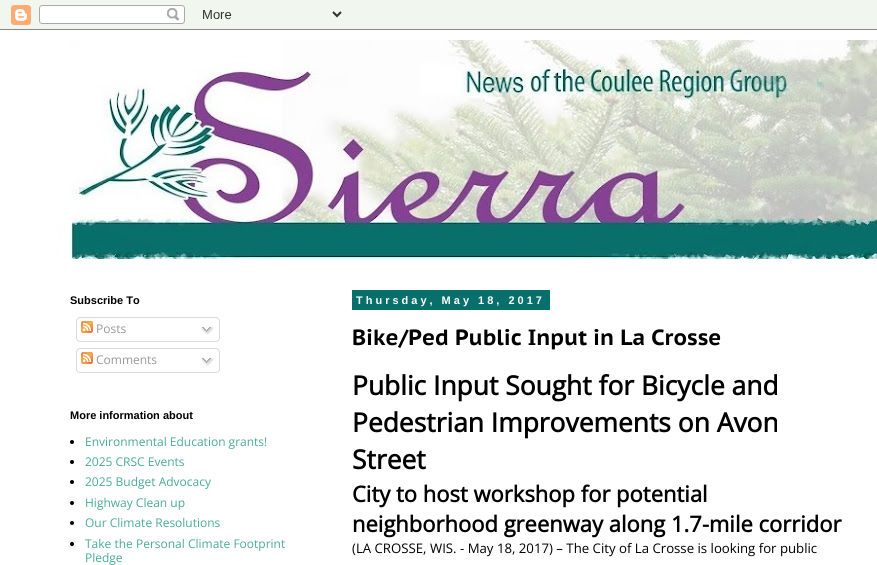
#include <cairo/cairo.h>
#include <math.h>
#include <stddef.h>


static void draw_spaced(cairo_t *cr, double x, double y, const char *s, double letter, double word) {
  cairo_move_to(cr, x, y);
  while (*s) {
    char ch[5] = {0};
    int n = 0;
    do ch[n++] = *s++; while ((*s & 0xC0) == 0x80);
    cairo_show_text(cr, ch);
    cairo_rel_move_to(cr, letter + word * (*ch == ' '), 0);
  }
}

static void draw_image(cairo_t *cr, const char *path, double x, double y, double w, double h) {
  cairo_surface_t *image = cairo_image_surface_create_from_png(path);
  cairo_save(cr);
  cairo_set_source_surface(cr, image, x, y);
  cairo_rectangle(cr, x, y, w, h);
  cairo_fill(cr);
  cairo_restore(cr);
  cairo_surface_destroy(image);
}

static void draw(cairo_t *cr) {
  cairo_set_source_rgb(cr, 231 / 255.0, 242 / 255.0, 228 / 255.0);
  cairo_paint(cr);
  draw_image(cr, "images/1.png", 0, 0, 877, 30);
  cairo_set_source_rgb(cr, 1, 1, 1);
  cairo_rectangle(cr, 0, 30, 877, 535);
  cairo_fill(cr);
  draw_image(cr, "images/2.png", 40, 40, 837, 219);
  draw_image(cr, "images/3.png", 76, 317, 144, 22);
  draw_image(cr, "images/4.png", 81, 321, 12, 12);
  draw_image(cr, "images/5.png", 201, 326, 13, 9);
  draw_image(cr, "images/6.png", 76, 339, 144, 3);
  draw_image(cr, "images/3.png", 76, 348, 144, 22);
  draw_image(cr, "images/4.png", 81, 352, 12, 12);
  draw_image(cr, "images/5.png", 201, 357, 13, 9);
  draw_image(cr, "images/6.png", 76, 370, 144, 3);
  cairo_set_source_rgb(cr, 0, 0, 0);
  cairo_arc(cr, 72, 442, 2, 0, 2 * M_PI);
  cairo_fill(cr);
  cairo_arc(cr, 72, 462, 2, 0, 2 * M_PI);
  cairo_fill(cr);
  cairo_arc(cr, 72, 482, 2, 0, 2 * M_PI);
  cairo_fill(cr);
  cairo_arc(cr, 72, 503, 2, 0, 2 * M_PI);
  cairo_fill(cr);
  cairo_arc(cr, 72, 523, 2, 0, 2 * M_PI);
  cairo_fill(cr);
  cairo_arc(cr, 72, 544, 2, 0, 2 * M_PI);
  cairo_fill(cr);
  cairo_set_source_rgb(cr, 8 / 255.0, 111 / 255.0, 107 / 255.0);
  cairo_rectangle(cr, 352, 290, 198, 20);
  cairo_fill(cr);
  cairo_select_font_face(cr, "Liberation Sans", CAIRO_FONT_SLANT_NORMAL, CAIRO_FONT_WEIGHT_BOLD);
  cairo_set_font_size(cr, 11);
  cairo_set_source_rgb(cr, 0, 0, 0);
  cairo_move_to(cr, 70, 304);
  cairo_show_text(cr, "Subscribe To");
  cairo_select_font_face(cr, "Open Sans", CAIRO_FONT_SLANT_NORMAL, CAIRO_FONT_WEIGHT_NORMAL);
  cairo_set_font_size(cr, 12);
  cairo_set_source_rgb(cr, 153 / 255.0, 153 / 255.0, 153 / 255.0);
  cairo_move_to(cr, 96, 333);
  cairo_show_text(cr, "Posts");
  cairo_move_to(cr, 96, 364);
  cairo_show_text(cr, "Comments");
  cairo_select_font_face(cr, "Liberation Sans", CAIRO_FONT_SLANT_NORMAL, CAIRO_FONT_WEIGHT_BOLD);
  cairo_set_font_size(cr, 11);
  cairo_set_source_rgb(cr, 0, 0, 0);
  cairo_move_to(cr, 70, 419);
  cairo_show_text(cr, "More information about");
  cairo_select_font_face(cr, "Open Sans", CAIRO_FONT_SLANT_NORMAL, CAIRO_FONT_WEIGHT_NORMAL);
  cairo_set_font_size(cr, 12);
  cairo_set_source_rgb(cr, 73 / 255.0, 170 / 255.0, 153 / 255.0);
  cairo_move_to(cr, 85, 446);
  cairo_show_text(cr, "Environmental Education grants!");
  cairo_move_to(cr, 85, 466);
  cairo_show_text(cr, "2025 CRSC Events");
  cairo_move_to(cr, 85, 486);
  cairo_show_text(cr, "2025 Budget Advocacy");
  cairo_move_to(cr, 85, 507);
  cairo_show_text(cr, "Highway Clean up");
  cairo_move_to(cr, 85, 527);
  cairo_show_text(cr, "Our Climate Resolutions");
  cairo_move_to(cr, 85, 548);
  cairo_show_text(cr, "Take the Personal Climate Footprint");
  cairo_move_to(cr, 85, 562);
  cairo_show_text(cr, "Pledge");
  cairo_select_font_face(cr, "Liberation Sans", CAIRO_FONT_SLANT_NORMAL, CAIRO_FONT_WEIGHT_BOLD);
  cairo_set_font_size(cr, 11);
  cairo_set_source_rgb(cr, 1, 1, 1);
  draw_spaced(cr, 356, 304, "Thursday, May 18, 2017", 3, 0);
  cairo_select_font_face(cr, "PT Sans Caption", CAIRO_FONT_SLANT_NORMAL, CAIRO_FONT_WEIGHT_BOLD);
  cairo_set_font_size(cr, 22);
  cairo_set_source_rgb(cr, 0, 0, 0);
  cairo_move_to(cr, 352, 345);
  cairo_show_text(cr, "Bike/Ped Public Input in La Crosse");
  cairo_select_font_face(cr, "Open Sans", CAIRO_FONT_SLANT_NORMAL, CAIRO_FONT_WEIGHT_BOLD);
  cairo_set_font_size(cr, 26.4);
  cairo_move_to(cr, 352, 395);
  cairo_show_text(cr, "Public Input Sought for Bicycle and");
  cairo_move_to(cr, 352, 432);
  cairo_show_text(cr, "Pedestrian Improvements on Avon");
  cairo_move_to(cr, 352, 469);
  cairo_show_text(cr, "Street");
  cairo_set_font_size(cr, 22);
  cairo_move_to(cr, 352, 502);
  cairo_show_text(cr, "City to host workshop for potential");
  cairo_move_to(cr, 352, 532);
  cairo_show_text(cr, "neighborhood greenway along 1.7-mile corridor");
  cairo_select_font_face(cr, "Open Sans", CAIRO_FONT_SLANT_NORMAL, CAIRO_FONT_WEIGHT_NORMAL);
  cairo_set_font_size(cr, 13.2);
  cairo_move_to(cr, 352, 553);
  cairo_show_text(cr, "(LA CROSSE, WIS. - May 18, 2017) – The City of La Crosse is looking for public");
}

int main(void) {
  cairo_surface_t *surface = cairo_image_surface_create(CAIRO_FORMAT_RGB24, 877, 565);
  cairo_t *cr = cairo_create(surface);
  cairo_font_options_t *options = cairo_font_options_create();
  cairo_font_options_set_hint_metrics(options, CAIRO_HINT_METRICS_OFF);
  cairo_font_options_set_hint_style(options, CAIRO_HINT_STYLE_NONE);
  cairo_set_font_options(cr, options);
  cairo_set_miter_limit(cr, 4);
  draw(cr);
  cairo_surface_write_to_png(surface, "out.png");
  cairo_font_options_destroy(options);
  cairo_destroy(cr);
  cairo_surface_destroy(surface);
  return 0;
}
